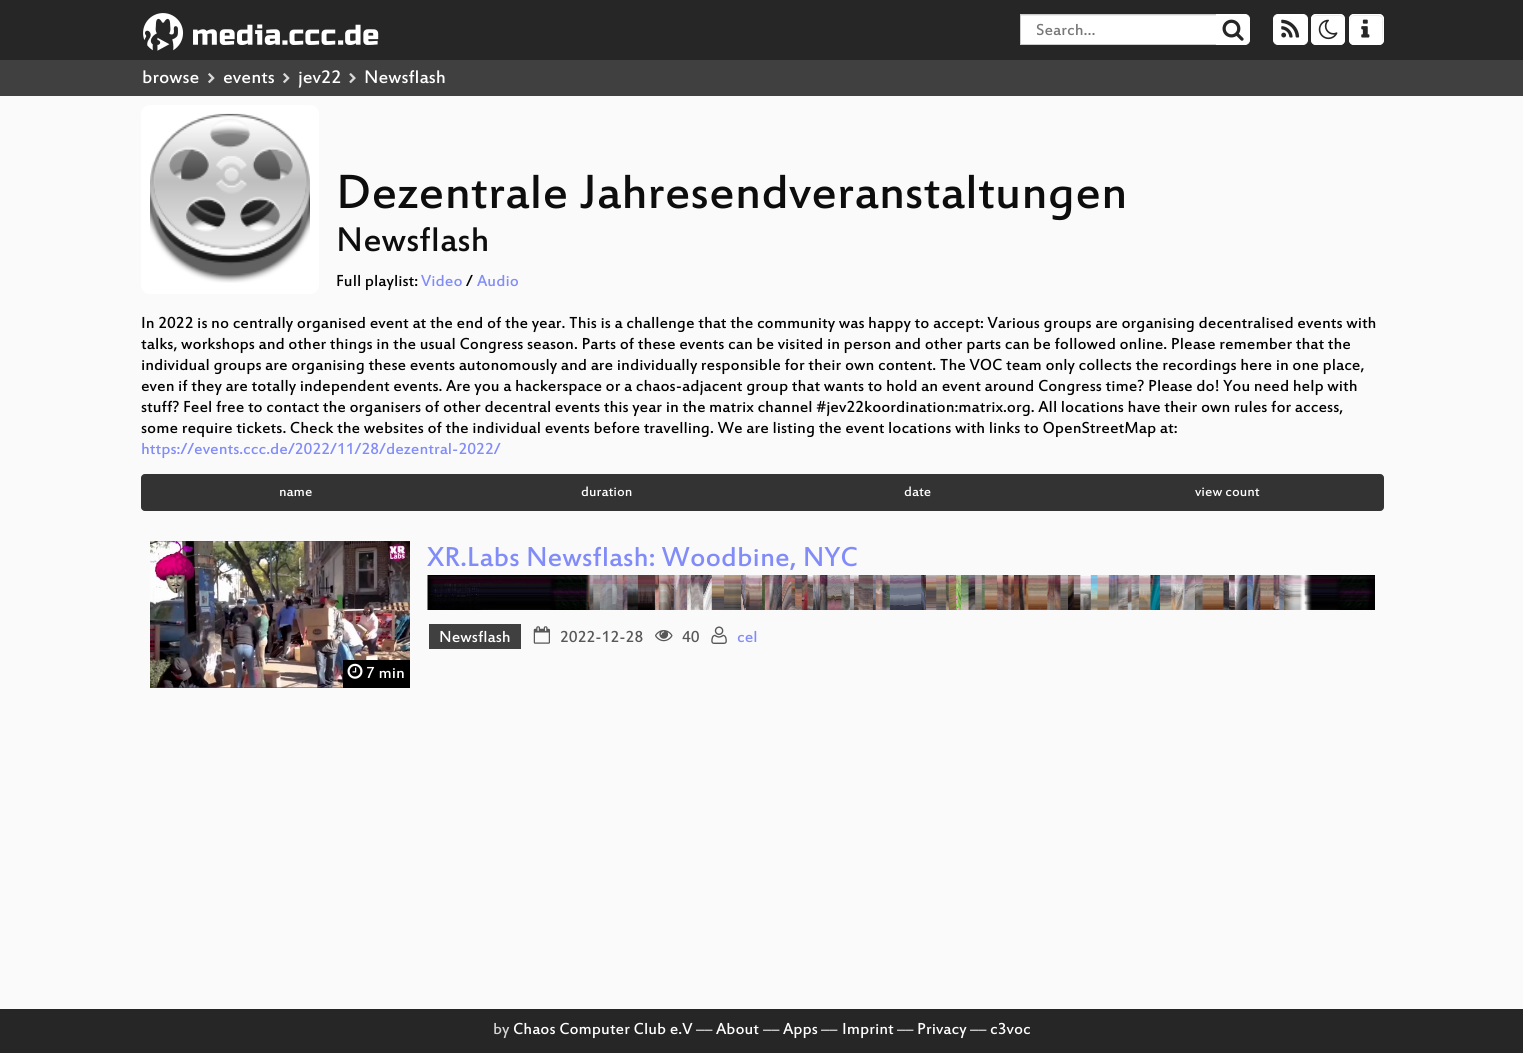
#include <cairo/cairo.h>
#include <math.h>
#include <stddef.h>


static void rounded_rect(cairo_t *cr, double x, double y, double w, double h, double r) {
  cairo_new_sub_path(cr);
  cairo_arc(cr, x + w - r, y + h - r, r, 0, M_PI / 2);
  cairo_arc(cr, x + r, y + h - r, r, M_PI / 2, M_PI);
  cairo_arc(cr, x + r, y + r, r, M_PI, 1.5 * M_PI);
  cairo_arc(cr, x + w - r, y + r, r, 1.5 * M_PI, 2 * M_PI);
  cairo_close_path(cr);
}

static void draw_image(cairo_t *cr, const char *path, double x, double y, double w, double h) {
  cairo_surface_t *image = cairo_image_surface_create_from_png(path);
  cairo_save(cr);
  cairo_set_source_surface(cr, image, x, y);
  cairo_rectangle(cr, x, y, w, h);
  cairo_fill(cr);
  cairo_restore(cr);
  cairo_surface_destroy(image);
}

static void draw(cairo_t *cr) {
  cairo_set_source_rgb(cr, 250 / 255.0, 250 / 255.0, 250 / 255.0);
  cairo_paint(cr);
  cairo_set_source_rgb(cr, 38 / 255.0, 38 / 255.0, 38 / 255.0);
  cairo_rectangle(cr, 0, 0, 1523, 60);
  cairo_fill(cr);
  draw_image(cr, "images/1.png", 143, 13, 236, 38);
  cairo_set_source_rgb(cr, 1, 1, 1);
  cairo_rectangle(cr, 1021, 16, 195, 28);
  cairo_fill(cr);
  cairo_set_source_rgb(cr, 236 / 255.0, 236 / 255.0, 236 / 255.0);
  cairo_rectangle(cr, 1021, 15, 195, 1);
  cairo_fill(cr);
  cairo_rectangle(cr, 1020.5, 14.5, 197, 30);
  cairo_set_source_rgb(cr, 204 / 255.0, 204 / 255.0, 204 / 255.0);
  cairo_set_line_width(cr, 1);
  cairo_stroke(cr);
  cairo_set_source_rgb(cr, 1, 1, 1);
  cairo_new_path(cr);
  cairo_move_to(cr, 1216.5, 14.5);
  cairo_line_to(cr, 1245, 14.5);
  cairo_curve_to(cr, 1247.5, 14.5, 1249.5, 16.5, 1249.5, 19);
  cairo_line_to(cr, 1249.5, 40);
  cairo_curve_to(cr, 1249.5, 42.5, 1247.5, 44.5, 1245, 44.5);
  cairo_line_to(cr, 1216.5, 44.5);
  cairo_close_path(cr);
  cairo_fill_preserve(cr);
  cairo_stroke(cr);
  draw_image(cr, "images/2.png", 1222, 19, 22, 22);
  rounded_rect(cr, 1273.5, 14.5, 34, 30, 4.5);
  cairo_fill_preserve(cr);
  cairo_stroke(cr);
  draw_image(cr, "images/3.png", 1281, 19, 19, 19);
  rounded_rect(cr, 1311, 14, 34, 31, 5);
  cairo_fill(cr);
  cairo_set_source_rgb(cr, 236 / 255.0, 236 / 255.0, 236 / 255.0);
  cairo_new_path(cr);
  cairo_move_to(cr, 1316, 16);
  cairo_line_to(cr, 1340, 16);
  cairo_curve_to(cr, 1342, 16, 1344, 18, 1344, 20);
  cairo_line_to(cr, 1344, 19);
  cairo_curve_to(cr, 1344, 17, 1342, 15, 1340, 15);
  cairo_line_to(cr, 1317, 15);
  cairo_curve_to(cr, 1315.5, 15, 1314, 16, 1313.5, 17);
  cairo_curve_to(cr, 1314.5, 16.5, 1315, 16, 1316, 16);
  cairo_close_path(cr);
  cairo_fill(cr);
  rounded_rect(cr, 1311.5, 14.5, 33, 30, 4.5);
  cairo_set_source_rgb(cr, 1, 1, 1);
  cairo_stroke(cr);
  draw_image(cr, "images/4.png", 1318, 19, 20, 21);
  rounded_rect(cr, 1349, 14, 35, 31, 5);
  cairo_fill(cr);
  cairo_set_source_rgb(cr, 236 / 255.0, 236 / 255.0, 236 / 255.0);
  cairo_set_fill_rule(cr, CAIRO_FILL_RULE_EVEN_ODD);
  cairo_new_path(cr);
  cairo_move_to(cr, 1354, 16);
  cairo_line_to(cr, 1375, 16);
  cairo_curve_to(cr, 1382.5, 16, 1382.5, 17.5, 1382, 23);
  cairo_line_to(cr, 1382, 27);
  cairo_curve_to(cr, 1382, 36, 1383, 40.5, 1382, 42.5);
  cairo_curve_to(cr, 1382.5, 42, 1383, 41, 1383, 40);
  cairo_line_to(cr, 1383, 19);
  cairo_curve_to(cr, 1383, 17, 1381, 15, 1379, 15);
  cairo_line_to(cr, 1354, 15);
  cairo_curve_to(cr, 1352, 15, 1350, 17, 1350, 19);
  cairo_line_to(cr, 1350, 24);
  cairo_curve_to(cr, 1350, 21, 1350, 16, 1354, 16);
  cairo_close_path(cr);
  cairo_move_to(cr, 1350, 41);
  cairo_line_to(cr, 1350, 38);
  cairo_close_path(cr);
  cairo_fill(cr);
  rounded_rect(cr, 1349.5, 14.5, 34, 30, 4.5);
  cairo_set_source_rgb(cr, 1, 1, 1);
  cairo_stroke(cr);
  draw_image(cr, "images/5.png", 1361, 19, 9, 19);
  cairo_set_source_rgb(cr, 64 / 255.0, 64 / 255.0, 64 / 255.0);
  cairo_rectangle(cr, 0, 60, 1523, 36);
  cairo_fill(cr);
  draw_image(cr, "images/6.png", 208, 73, 7, 11);
  draw_image(cr, "images/6.png", 283, 73, 7, 11);
  draw_image(cr, "images/7.png", 349, 73, 7, 11);
  cairo_set_source_rgb(cr, 1, 1, 1);
  rounded_rect(cr, 141, 105, 178, 189, 9);
  cairo_fill(cr);
  draw_image(cr, "images/8.png", 150, 113, 160, 170);
  cairo_set_source_rgb(cr, 51 / 255.0, 51 / 255.0, 51 / 255.0);
  cairo_new_path(cr);
  cairo_move_to(cr, 145, 474.5);
  cairo_line_to(cr, 450.5, 474.5);
  cairo_line_to(cr, 450.5, 510.5);
  cairo_line_to(cr, 145, 510.5);
  cairo_curve_to(cr, 143, 510.5, 141.5, 509, 141.5, 507);
  cairo_line_to(cr, 141.5, 478);
  cairo_curve_to(cr, 141.5, 476, 143, 474.5, 145, 474.5);
  cairo_close_path(cr);
  cairo_fill_preserve(cr);
  cairo_stroke(cr);
  cairo_rectangle(cr, 451, 474, 622, 37);
  cairo_fill(cr);
  cairo_new_path(cr);
  cairo_move_to(cr, 1073.5, 474.5);
  cairo_line_to(cr, 1380, 474.5);
  cairo_curve_to(cr, 1382, 474.5, 1383.5, 476, 1383.5, 478);
  cairo_line_to(cr, 1383.5, 507);
  cairo_curve_to(cr, 1383.5, 509, 1382, 510.5, 1380, 510.5);
  cairo_line_to(cr, 1073.5, 510.5);
  cairo_close_path(cr);
  cairo_fill_preserve(cr);
  cairo_stroke(cr);
  draw_image(cr, "images/9.png", 427, 575, 948, 35);
  cairo_set_source_rgb(cr, 64 / 255.0, 64 / 255.0, 64 / 255.0);
  cairo_rectangle(cr, 429, 624, 92, 25);
  cairo_fill(cr);
  draw_image(cr, "images/10.png", 533, 626, 17, 18);
  draw_image(cr, "images/11.png", 655, 630, 18, 12);
  draw_image(cr, "images/12.png", 711, 626, 16, 18);
  cairo_rectangle(cr, 150, 541, 260, 147);
  cairo_fill(cr);
  draw_image(cr, "images/13.png", 150, 541, 260, 147);
  cairo_set_source_rgb(cr, 0, 0, 0);
  cairo_rectangle(cr, 343, 660, 67, 28);
  cairo_fill(cr);
  draw_image(cr, "images/14.png", 347, 663, 16, 16);
  cairo_set_source_rgb(cr, 38 / 255.0, 38 / 255.0, 38 / 255.0);
  cairo_rectangle(cr, 0, 1009, 1523, 44);
  cairo_fill(cr);
  cairo_select_font_face(cr, "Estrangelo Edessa", CAIRO_FONT_SLANT_NORMAL, CAIRO_FONT_WEIGHT_NORMAL);
  cairo_set_font_size(cr, 17.5);
  cairo_set_source_rgb(cr, 119 / 255.0, 119 / 255.0, 119 / 255.0);
  cairo_move_to(cr, 1036, 35);
  cairo_show_text(cr, "Search…");
  cairo_set_font_size(cr, 20);
  cairo_set_source_rgb(cr, 1, 1, 1);
  cairo_move_to(cr, 142, 83);
  cairo_show_text(cr, "browse");
  cairo_move_to(cr, 223, 83);
  cairo_show_text(cr, "events");
  cairo_move_to(cr, 298, 83);
  cairo_show_text(cr, "jev22");
  cairo_move_to(cr, 364, 83);
  cairo_show_text(cr, "Newsflash");
  cairo_set_font_size(cr, 52.5);
  cairo_set_source_rgb(cr, 13 / 255.0, 13 / 255.0, 13 / 255.0);
  cairo_move_to(cr, 336, 208);
  cairo_show_text(cr, "Dezentrale Jahresendveranstaltungen");
  cairo_set_font_size(cr, 37.5);
  cairo_move_to(cr, 336, 251);
  cairo_show_text(cr, "Newsflash");
  cairo_set_font_size(cr, 17.5);
  cairo_set_source_rgb(cr, 0, 0, 0);
  cairo_move_to(cr, 336, 286);
  cairo_show_text(cr, "Full playlist:");
  cairo_set_source_rgb(cr, 129 / 255.0, 140 / 255.0, 248 / 255.0);
  cairo_move_to(cr, 421, 286);
  cairo_show_text(cr, "Video");
  cairo_set_source_rgb(cr, 0, 0, 0);
  cairo_move_to(cr, 466, 286);
  cairo_show_text(cr, "/");
  cairo_set_source_rgb(cr, 129 / 255.0, 140 / 255.0, 248 / 255.0);
  cairo_move_to(cr, 477, 286);
  cairo_show_text(cr, "Audio");
  cairo_set_source_rgb(cr, 0, 0, 0);
  cairo_move_to(cr, 141, 328);
  cairo_show_text(cr, "In 2022 is no centrally organised event at the end of the year. This is a challenge that the community was happy to accept: Various groups are organising decentralised events with");
  cairo_move_to(cr, 141, 349);
  cairo_show_text(cr, "talks, workshops and other things in the usual Congress season. Parts of these events can be visited in person and other parts can be followed online. Please remember that the");
  cairo_move_to(cr, 141, 370);
  cairo_show_text(cr, "individual groups are organising these events autonomously and are individually responsible for their own content. The VOC team only collects the recordings here in one place,");
  cairo_move_to(cr, 141, 391);
  cairo_show_text(cr, "even if they are totally independent events. Are you a hackerspace or a chaos-adjacent group that wants to hold an event around Congress time? Please do! You need help with");
  cairo_move_to(cr, 141, 412);
  cairo_show_text(cr, "stuff? Feel free to contact the organisers of other decentral events this year in the matrix channel #jev22koordination:matrix.org. All locations have their own rules for access,");
  cairo_move_to(cr, 141, 433);
  cairo_show_text(cr, "some require tickets. Check the websites of the individual events before travelling. We are listing the event locations with links to OpenStreetMap at:");
  cairo_set_source_rgb(cr, 129 / 255.0, 140 / 255.0, 248 / 255.0);
  cairo_move_to(cr, 141, 454);
  cairo_show_text(cr, "https://events.ccc.de/2022/11/28/dezentral-2022/");
  cairo_set_font_size(cr, 15);
  cairo_set_source_rgb(cr, 1, 1, 1);
  cairo_move_to(cr, 279, 496);
  cairo_show_text(cr, "name");
  cairo_move_to(cr, 581, 496);
  cairo_show_text(cr, "duration");
  cairo_move_to(cr, 904, 496);
  cairo_show_text(cr, "date");
  cairo_move_to(cr, 1195, 496);
  cairo_show_text(cr, "view count");
  cairo_set_font_size(cr, 30);
  cairo_set_source_rgb(cr, 129 / 255.0, 140 / 255.0, 248 / 255.0);
  cairo_move_to(cr, 427, 566);
  cairo_show_text(cr, "XR.Labs Newsflash: Woodbine, NYC");
  cairo_set_font_size(cr, 17.5);
  cairo_set_source_rgb(cr, 1, 1, 1);
  cairo_move_to(cr, 439, 642);
  cairo_show_text(cr, "Newsflash");
  cairo_set_source_rgb(cr, 88 / 255.0, 88 / 255.0, 88 / 255.0);
  cairo_move_to(cr, 560, 642);
  cairo_show_text(cr, "2022-12-28");
  cairo_move_to(cr, 682, 642);
  cairo_show_text(cr, "40");
  cairo_set_source_rgb(cr, 129 / 255.0, 140 / 255.0, 248 / 255.0);
  cairo_move_to(cr, 737, 642);
  cairo_show_text(cr, "cel");
  cairo_set_source_rgb(cr, 1, 1, 1);
  cairo_move_to(cr, 366, 678);
  cairo_show_text(cr, "7 min");
  cairo_set_source_rgb(cr, 212 / 255.0, 212 / 255.0, 212 / 255.0);
  cairo_move_to(cr, 493, 1034);
  cairo_show_text(cr, "by");
  cairo_set_source_rgb(cr, 1, 1, 1);
  cairo_move_to(cr, 513, 1034);
  cairo_show_text(cr, "Chaos Computer Club e.V");
  cairo_set_source_rgb(cr, 212 / 255.0, 212 / 255.0, 212 / 255.0);
  cairo_move_to(cr, 696, 1034);
  cairo_show_text(cr, "––");
  cairo_set_source_rgb(cr, 1, 1, 1);
  cairo_move_to(cr, 716, 1034);
  cairo_show_text(cr, "About");
  cairo_set_source_rgb(cr, 212 / 255.0, 212 / 255.0, 212 / 255.0);
  cairo_move_to(cr, 763, 1034);
  cairo_show_text(cr, "––");
  cairo_set_source_rgb(cr, 1, 1, 1);
  cairo_move_to(cr, 783, 1034);
  cairo_show_text(cr, "Apps");
  cairo_set_source_rgb(cr, 212 / 255.0, 212 / 255.0, 212 / 255.0);
  cairo_move_to(cr, 821, 1034);
  cairo_show_text(cr, "––");
  cairo_set_source_rgb(cr, 1, 1, 1);
  cairo_move_to(cr, 842, 1034);
  cairo_show_text(cr, "Imprint");
  cairo_set_source_rgb(cr, 212 / 255.0, 212 / 255.0, 212 / 255.0);
  cairo_move_to(cr, 897, 1034);
  cairo_show_text(cr, "––");
  cairo_set_source_rgb(cr, 1, 1, 1);
  cairo_move_to(cr, 917, 1034);
  cairo_show_text(cr, "Privacy");
  cairo_set_source_rgb(cr, 212 / 255.0, 212 / 255.0, 212 / 255.0);
  cairo_move_to(cr, 970, 1034);
  cairo_show_text(cr, "––");
  cairo_set_source_rgb(cr, 1, 1, 1);
  cairo_move_to(cr, 990, 1034);
  cairo_show_text(cr, "c3voc");
}

int main(void) {
  cairo_surface_t *surface = cairo_image_surface_create(CAIRO_FORMAT_RGB24, 1523, 1053);
  cairo_t *cr = cairo_create(surface);
  cairo_font_options_t *options = cairo_font_options_create();
  cairo_font_options_set_hint_metrics(options, CAIRO_HINT_METRICS_OFF);
  cairo_font_options_set_hint_style(options, CAIRO_HINT_STYLE_NONE);
  cairo_set_font_options(cr, options);
  cairo_set_miter_limit(cr, 4);
  draw(cr);
  cairo_surface_write_to_png(surface, "out.png");
  cairo_font_options_destroy(options);
  cairo_destroy(cr);
  cairo_surface_destroy(surface);
  return 0;
}
